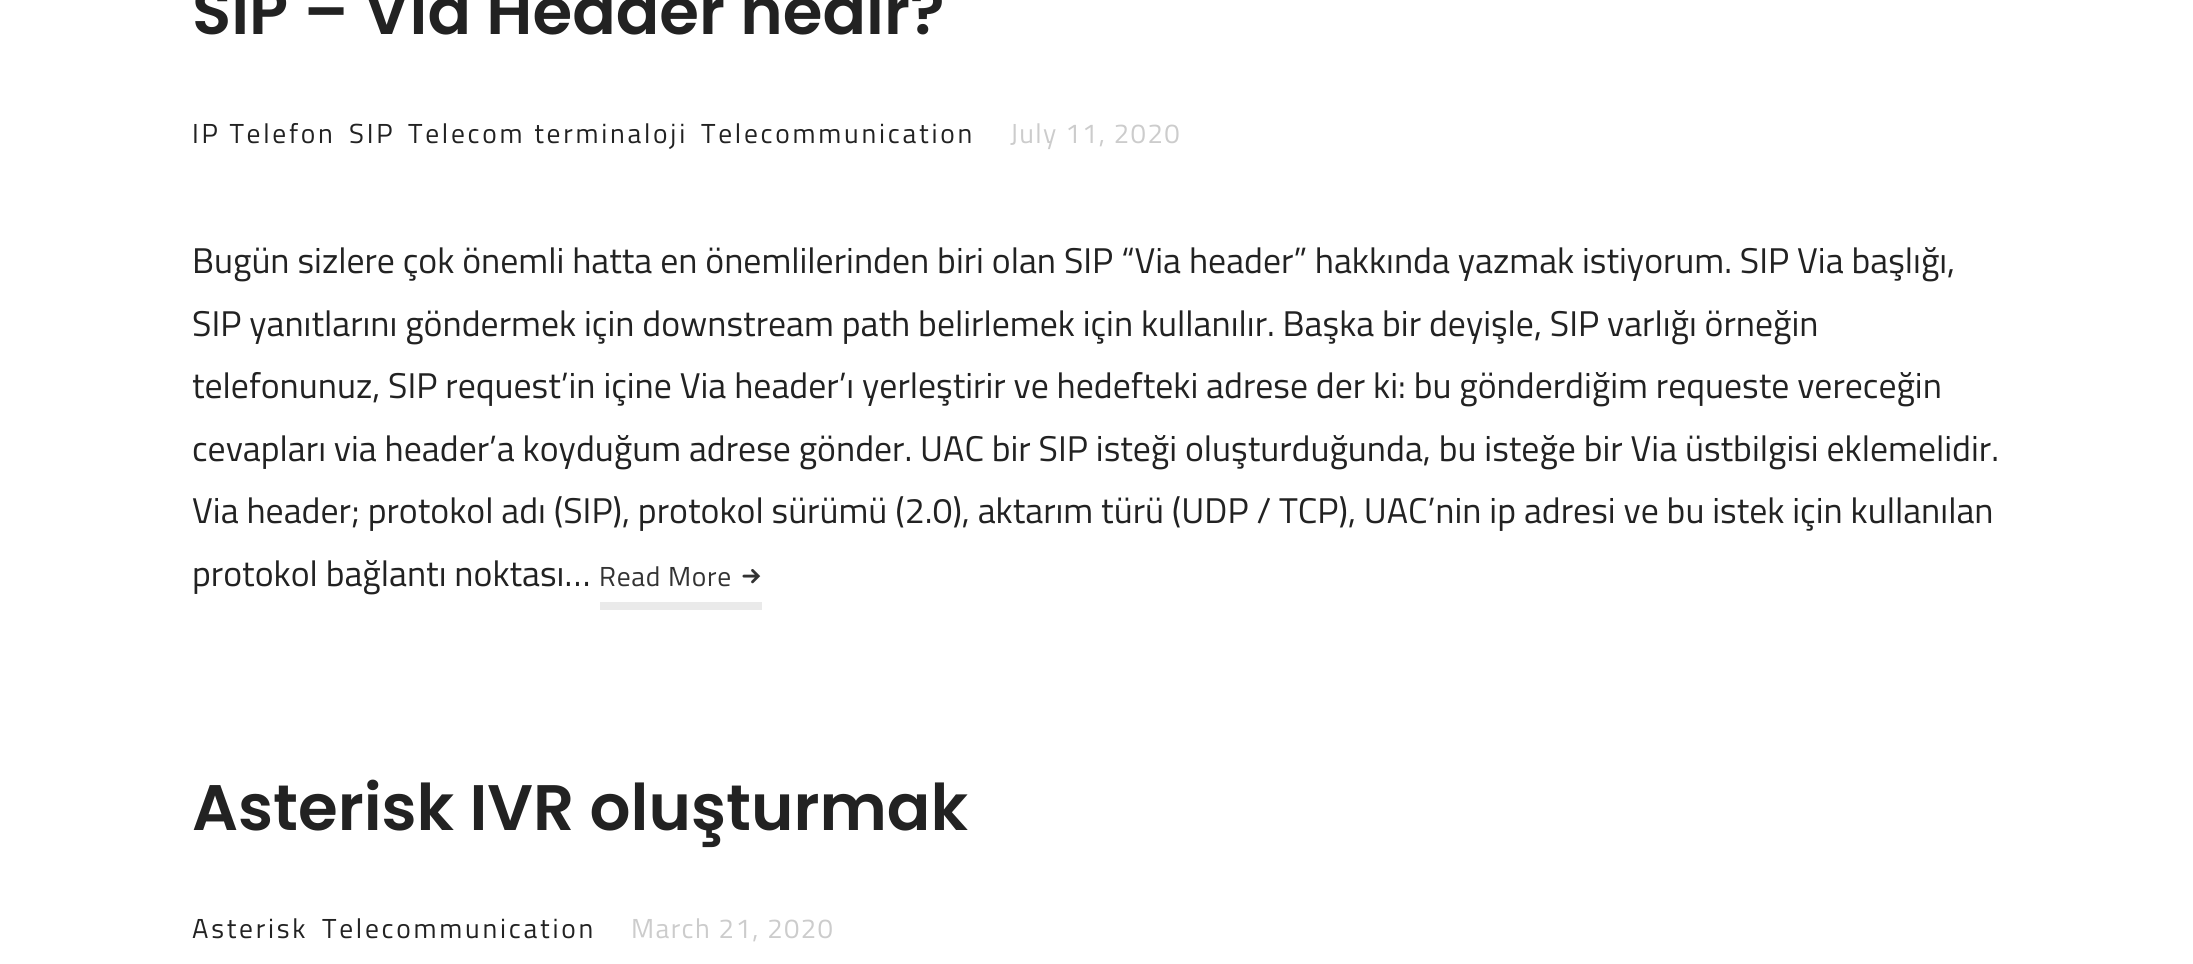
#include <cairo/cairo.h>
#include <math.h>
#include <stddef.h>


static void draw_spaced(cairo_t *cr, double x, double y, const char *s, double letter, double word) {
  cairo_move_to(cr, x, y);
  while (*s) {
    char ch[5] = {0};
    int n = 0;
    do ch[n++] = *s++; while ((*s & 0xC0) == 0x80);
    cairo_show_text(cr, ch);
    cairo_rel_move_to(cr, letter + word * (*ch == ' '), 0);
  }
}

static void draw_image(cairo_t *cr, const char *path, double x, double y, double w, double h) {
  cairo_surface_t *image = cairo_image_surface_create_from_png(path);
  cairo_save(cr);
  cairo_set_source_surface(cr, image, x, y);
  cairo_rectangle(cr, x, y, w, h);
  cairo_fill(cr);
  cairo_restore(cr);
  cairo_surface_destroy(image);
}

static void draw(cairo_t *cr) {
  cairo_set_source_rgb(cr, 1, 1, 1);
  cairo_paint(cr);
  cairo_set_source_rgb(cr, 234 / 255.0, 234 / 255.0, 234 / 255.0);
  cairo_rectangle(cr, 600, 602, 162, 8);
  cairo_fill(cr);
  draw_image(cr, "images/1.png", 742, 569, 19, 15);
  cairo_select_font_face(cr, "Poppins SemiBold", CAIRO_FONT_SLANT_NORMAL, CAIRO_FONT_WEIGHT_NORMAL);
  cairo_set_font_size(cr, 64.3);
  cairo_set_source_rgb(cr, 34 / 255.0, 34 / 255.0, 34 / 255.0);
  cairo_move_to(cr, 192, 34);
  cairo_show_text(cr, "SIP – Via Header nedir?");
  cairo_select_font_face(cr, "Titillium Web", CAIRO_FONT_SLANT_NORMAL, CAIRO_FONT_WEIGHT_NORMAL);
  cairo_set_font_size(cr, 27.5);
  draw_spaced(cr, 192, 143, "IP Telefon", 2.75, 0);
  draw_spaced(cr, 349, 143, "SIP", 2.75, 0);
  draw_spaced(cr, 408, 143, "Telecom terminaloji", 2.75, 0);
  draw_spaced(cr, 701, 143, "Telecommunication", 2.75, 0);
  cairo_set_source_rgb(cr, 204 / 255.0, 204 / 255.0, 204 / 255.0);
  draw_spaced(cr, 1010, 143, "July 11, 2020", 1.4, 0);
  cairo_set_font_size(cr, 35.75);
  cairo_set_source_rgb(cr, 34 / 255.0, 34 / 255.0, 34 / 255.0);
  cairo_move_to(cr, 192, 273);
  cairo_show_text(cr, "Bugün sizlere çok önemli hatta en önemlilerinden biri olan SIP “Via header” hakkında yazmak istiyorum. SIP Via başlığı,");
  cairo_move_to(cr, 192, 336);
  cairo_show_text(cr, "SIP yanıtlarını göndermek için downstream path belirlemek için kullanılır. Başka bir deyişle, SIP varlığı örneğin");
  cairo_move_to(cr, 192, 398);
  cairo_show_text(cr, "telefonunuz, SIP request’in içine Via header’ı yerleştirir ve hedefteki adrese der ki: bu gönderdiğim requeste vereceğin");
  cairo_move_to(cr, 192, 461);
  cairo_show_text(cr, "cevapları via header’a koyduğum adrese gönder. UAC bir SIP isteği oluşturduğunda, bu isteğe bir Via üstbilgisi eklemelidir.");
  cairo_move_to(cr, 192, 523);
  cairo_show_text(cr, "Via header; protokol adı (SIP), protokol sürümü (2.0), aktarım türü (UDP / TCP), UAC’nin ip adresi ve bu istek için kullanılan");
  cairo_move_to(cr, 192, 586);
  cairo_show_text(cr, "protokol bağlantı noktası…");
  cairo_set_font_size(cr, 27.5);
  cairo_set_source_rgb(cr, 51 / 255.0, 51 / 255.0, 51 / 255.0);
  draw_spaced(cr, 599, 586, "Read More", 0.75, 0);
  cairo_select_font_face(cr, "Poppins SemiBold", CAIRO_FONT_SLANT_NORMAL, CAIRO_FONT_WEIGHT_NORMAL);
  cairo_set_font_size(cr, 64.3);
  cairo_set_source_rgb(cr, 34 / 255.0, 34 / 255.0, 34 / 255.0);
  cairo_move_to(cr, 192, 830);
  cairo_show_text(cr, "Asterisk IVR oluşturmak");
  cairo_select_font_face(cr, "Titillium Web", CAIRO_FONT_SLANT_NORMAL, CAIRO_FONT_WEIGHT_NORMAL);
  cairo_set_font_size(cr, 27.5);
  draw_spaced(cr, 192, 938, "Asterisk", 2.75, 0);
  draw_spaced(cr, 322, 938, "Telecommunication", 2.75, 0);
  cairo_set_source_rgb(cr, 204 / 255.0, 204 / 255.0, 204 / 255.0);
  draw_spaced(cr, 631, 938, "March 21, 2020", 1.4, 0);
}

int main(void) {
  cairo_surface_t *surface = cairo_image_surface_create(CAIRO_FORMAT_RGB24, 2193, 964);
  cairo_t *cr = cairo_create(surface);
  cairo_font_options_t *options = cairo_font_options_create();
  cairo_font_options_set_hint_metrics(options, CAIRO_HINT_METRICS_OFF);
  cairo_font_options_set_hint_style(options, CAIRO_HINT_STYLE_NONE);
  cairo_set_font_options(cr, options);
  cairo_set_miter_limit(cr, 4);
  draw(cr);
  cairo_surface_write_to_png(surface, "out.png");
  cairo_font_options_destroy(options);
  cairo_destroy(cr);
  cairo_surface_destroy(surface);
  return 0;
}
